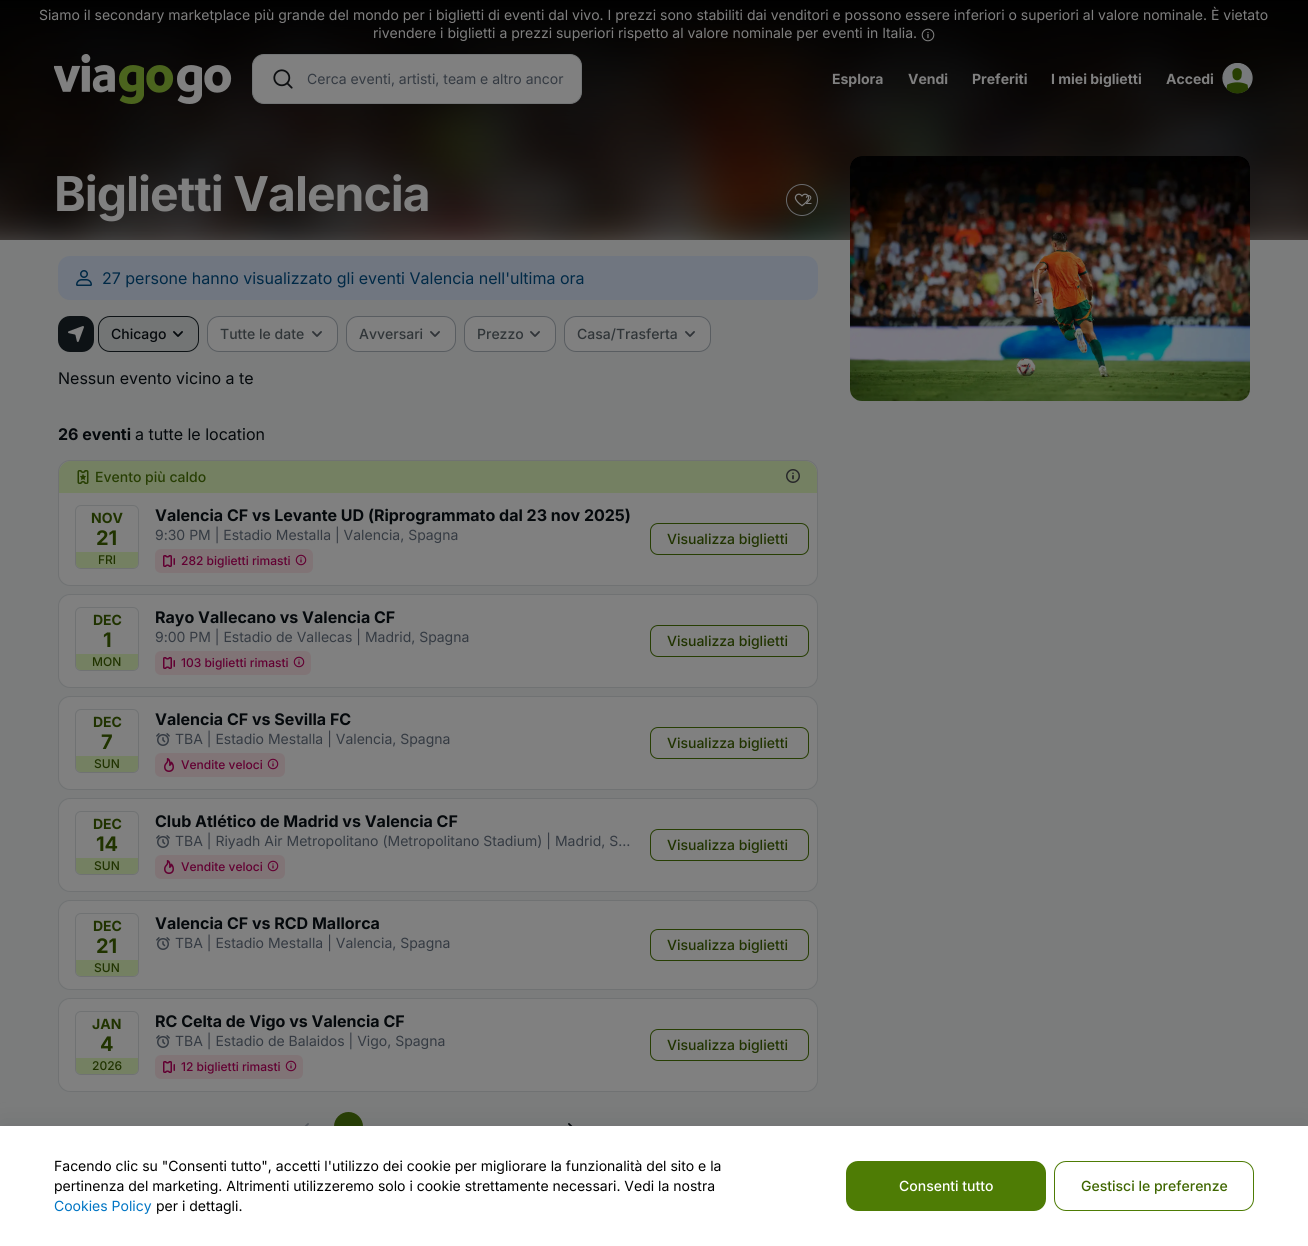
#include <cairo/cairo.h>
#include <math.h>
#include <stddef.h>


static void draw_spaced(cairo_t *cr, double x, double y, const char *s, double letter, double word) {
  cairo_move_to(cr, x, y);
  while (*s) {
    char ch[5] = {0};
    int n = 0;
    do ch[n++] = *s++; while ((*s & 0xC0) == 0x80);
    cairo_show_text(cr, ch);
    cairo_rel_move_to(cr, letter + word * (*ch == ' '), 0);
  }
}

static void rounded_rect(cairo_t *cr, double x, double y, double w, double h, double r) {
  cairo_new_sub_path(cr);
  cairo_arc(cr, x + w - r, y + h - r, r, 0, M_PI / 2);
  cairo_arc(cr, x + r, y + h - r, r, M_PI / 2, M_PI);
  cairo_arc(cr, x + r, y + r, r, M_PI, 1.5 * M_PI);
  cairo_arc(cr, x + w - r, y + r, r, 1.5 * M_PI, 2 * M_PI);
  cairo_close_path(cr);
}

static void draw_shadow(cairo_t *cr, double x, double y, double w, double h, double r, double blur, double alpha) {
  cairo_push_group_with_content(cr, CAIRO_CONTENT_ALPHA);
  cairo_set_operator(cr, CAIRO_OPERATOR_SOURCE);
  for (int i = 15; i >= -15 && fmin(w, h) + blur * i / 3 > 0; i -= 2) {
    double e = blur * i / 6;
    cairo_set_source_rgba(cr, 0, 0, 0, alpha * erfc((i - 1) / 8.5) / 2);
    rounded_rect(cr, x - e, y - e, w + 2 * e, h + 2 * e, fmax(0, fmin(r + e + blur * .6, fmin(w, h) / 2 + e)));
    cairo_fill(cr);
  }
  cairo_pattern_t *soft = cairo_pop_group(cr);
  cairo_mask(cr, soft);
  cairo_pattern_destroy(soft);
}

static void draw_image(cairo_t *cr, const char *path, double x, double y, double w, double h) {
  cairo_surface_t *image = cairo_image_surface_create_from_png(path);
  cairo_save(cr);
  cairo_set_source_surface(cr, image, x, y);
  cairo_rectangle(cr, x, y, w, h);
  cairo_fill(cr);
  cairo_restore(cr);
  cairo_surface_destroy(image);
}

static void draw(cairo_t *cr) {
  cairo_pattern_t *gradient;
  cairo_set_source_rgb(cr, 1, 1, 1);
  cairo_paint(cr);
  draw_image(cr, "images/1.png", 0, 3, 1308, 237);
  gradient = cairo_pattern_create_linear(654, 240, 654, 0);
  cairo_pattern_add_color_stop_rgba(gradient, 0, 0, 0, 0, 0.5);
  cairo_pattern_add_color_stop_rgba(gradient, 1, 0, 0, 0, 1);
  cairo_set_source(cr, gradient);
  cairo_pattern_destroy(gradient);
  cairo_rectangle(cr, 0, 0, 1308, 240);
  cairo_fill(cr);
  draw_image(cr, "images/2.png", 921, 28, 14, 14);
  draw_image(cr, "images/3.png", 54, 54, 61, 39);
  draw_image(cr, "images/4.png", 119, 65, 55, 39);
  draw_image(cr, "images/5.png", 177, 65, 55, 39);
  cairo_set_source_rgb(cr, 128 / 255.0, 128 / 255.0, 128 / 255.0);
  rounded_rect(cr, 252.5, 54.5, 329, 49, 11.5);
  cairo_fill_preserve(cr);
  cairo_set_source_rgb(cr, 115 / 255.0, 117 / 255.0, 118 / 255.0);
  cairo_set_line_width(cr, 1);
  cairo_stroke(cr);
  draw_image(cr, "images/6.png", 273, 69, 20, 20);
  draw_image(cr, "images/7.png", 1222, 63, 31, 31);
  cairo_arc(cr, 802, 200, 15.5, 0, 2 * M_PI);
  cairo_set_source_rgb(cr, 104 / 255.0, 106 / 255.0, 109 / 255.0);
  cairo_stroke(cr);
  cairo_set_source_rgb(cr, 123 / 255.0, 124 / 255.0, 124 / 255.0);
  cairo_rectangle(cr, 0, 240, 1308, 886);
  cairo_fill(cr);
  cairo_set_source_rgb(cr, 112 / 255.0, 118 / 255.0, 128 / 255.0);
  rounded_rect(cr, 58, 256, 760, 44, 12);
  cairo_fill(cr);
  draw_image(cr, "images/9.png", 76, 270, 16, 16);
  cairo_set_source_rgb(cr, 13 / 255.0, 18 / 255.0, 21 / 255.0);
  rounded_rect(cr, 58, 316, 36, 36, 12);
  cairo_fill(cr);
  draw_image(cr, "images/10.png", 68, 326, 16, 16);
  cairo_set_source_rgb(cr, 115 / 255.0, 117 / 255.0, 117 / 255.0);
  rounded_rect(cr, 98.5, 316.5, 100, 35, 11.5);
  cairo_fill_preserve(cr);
  cairo_set_source_rgb(cr, 13 / 255.0, 18 / 255.0, 21 / 255.0);
  cairo_stroke(cr);
  draw_image(cr, "images/11.png", 173, 331, 10, 6);
  cairo_set_source_rgb(cr, 128 / 255.0, 128 / 255.0, 128 / 255.0);
  rounded_rect(cr, 207.5, 316.5, 130, 35, 11.5);
  cairo_fill_preserve(cr);
  cairo_set_source_rgb(cr, 89 / 255.0, 93 / 255.0, 97 / 255.0);
  cairo_stroke(cr);
  draw_image(cr, "images/12.png", 312, 331, 10, 6);
  cairo_set_source_rgb(cr, 128 / 255.0, 128 / 255.0, 128 / 255.0);
  rounded_rect(cr, 346.5, 316.5, 109, 35, 11.5);
  cairo_fill_preserve(cr);
  cairo_set_source_rgb(cr, 89 / 255.0, 93 / 255.0, 97 / 255.0);
  cairo_stroke(cr);
  draw_image(cr, "images/12.png", 430, 331, 10, 6);
  cairo_set_source_rgb(cr, 128 / 255.0, 128 / 255.0, 128 / 255.0);
  rounded_rect(cr, 464.5, 316.5, 91, 35, 11.5);
  cairo_fill_preserve(cr);
  cairo_set_source_rgb(cr, 89 / 255.0, 93 / 255.0, 97 / 255.0);
  cairo_stroke(cr);
  draw_image(cr, "images/12.png", 530, 331, 10, 6);
  cairo_set_source_rgb(cr, 128 / 255.0, 128 / 255.0, 128 / 255.0);
  rounded_rect(cr, 564.5, 316.5, 146, 35, 11.5);
  cairo_fill_preserve(cr);
  cairo_set_source_rgb(cr, 89 / 255.0, 93 / 255.0, 97 / 255.0);
  cairo_stroke(cr);
  draw_image(cr, "images/12.png", 685, 331, 10, 6);
  rounded_rect(cr, 58.5, 460.5, 759, 125, 11.5);
  cairo_set_source_rgb(cr, 112 / 255.0, 114 / 255.0, 115 / 255.0);
  cairo_stroke(cr);
  cairo_set_source_rgb(cr, 116 / 255.0, 128 / 255.0, 98 / 255.0);
  cairo_new_path(cr);
  cairo_move_to(cr, 71, 461);
  cairo_line_to(cr, 805, 461);
  cairo_curve_to(cr, 811.5, 461, 817, 466.5, 817, 473);
  cairo_line_to(cr, 817, 493);
  cairo_line_to(cr, 59, 493);
  cairo_line_to(cr, 59, 473);
  cairo_curve_to(cr, 59, 466.5, 64.5, 461, 71, 461);
  cairo_close_path(cr);
  cairo_fill(cr);
  draw_image(cr, "images/13.png", 77, 470, 12, 14);
  draw_image(cr, "images/14.png", 786, 469, 14, 14);
  cairo_set_source_rgb(cr, 128 / 255.0, 128 / 255.0, 128 / 255.0);
  cairo_new_path(cr);
  cairo_move_to(cr, 59, 493);
  cairo_line_to(cr, 817, 493);
  cairo_line_to(cr, 817, 573);
  cairo_curve_to(cr, 817, 579.5, 811.5, 585, 805, 585);
  cairo_line_to(cr, 71, 585);
  cairo_curve_to(cr, 64.5, 585, 59, 579.5, 59, 573);
  cairo_close_path(cr);
  cairo_fill(cr);
  rounded_rect(cr, 75.5, 505.5, 63, 63, 5.5);
  cairo_set_source_rgb(cr, 112 / 255.0, 114 / 255.0, 115 / 255.0);
  cairo_stroke(cr);
  cairo_set_source_rgb(cr, 116 / 255.0, 128 / 255.0, 98 / 255.0);
  cairo_new_path(cr);
  cairo_move_to(cr, 76, 552);
  cairo_line_to(cr, 138, 552);
  cairo_line_to(cr, 138, 563);
  cairo_curve_to(cr, 138, 566, 136, 568, 133, 568);
  cairo_line_to(cr, 81, 568);
  cairo_curve_to(cr, 78, 568, 76, 566, 76, 563);
  cairo_close_path(cr);
  cairo_fill(cr);
  cairo_set_source_rgb(cr, 128 / 255.0, 116 / 255.0, 118 / 255.0);
  rounded_rect(cr, 155, 549, 158, 24, 6);
  cairo_fill(cr);
  draw_image(cr, "images/15.png", 163, 555, 12, 12);
  draw_image(cr, "images/16.png", 295, 554, 12, 12);
  rounded_rect(cr, 650.5, 523.5, 158, 31, 7.5);
  cairo_set_source_rgb(cr, 39 / 255.0, 62 / 255.0, 3 / 255.0);
  cairo_stroke(cr);
  rounded_rect(cr, 58.5, 594.5, 759, 93, 11.5);
  cairo_set_source_rgb(cr, 112 / 255.0, 114 / 255.0, 115 / 255.0);
  cairo_stroke(cr);
  cairo_set_source_rgb(cr, 128 / 255.0, 128 / 255.0, 128 / 255.0);
  rounded_rect(cr, 59, 595, 758, 92, 12);
  cairo_fill(cr);
  rounded_rect(cr, 75.5, 607.5, 63, 63, 5.5);
  cairo_set_source_rgb(cr, 112 / 255.0, 114 / 255.0, 115 / 255.0);
  cairo_stroke(cr);
  cairo_set_source_rgb(cr, 116 / 255.0, 128 / 255.0, 98 / 255.0);
  cairo_new_path(cr);
  cairo_move_to(cr, 76, 654);
  cairo_line_to(cr, 138, 654);
  cairo_line_to(cr, 138, 665);
  cairo_curve_to(cr, 138, 668, 136, 670, 133, 670);
  cairo_line_to(cr, 81, 670);
  cairo_curve_to(cr, 78, 670, 76, 668, 76, 665);
  cairo_close_path(cr);
  cairo_fill(cr);
  cairo_set_source_rgb(cr, 128 / 255.0, 116 / 255.0, 118 / 255.0);
  rounded_rect(cr, 155, 651, 156, 24, 6);
  cairo_fill(cr);
  draw_image(cr, "images/15.png", 163, 657, 12, 12);
  draw_image(cr, "images/16.png", 293, 656, 12, 12);
  rounded_rect(cr, 650.5, 625.5, 158, 31, 7.5);
  cairo_set_source_rgb(cr, 39 / 255.0, 62 / 255.0, 3 / 255.0);
  cairo_stroke(cr);
  rounded_rect(cr, 58.5, 696.5, 759, 93, 11.5);
  cairo_set_source_rgb(cr, 112 / 255.0, 114 / 255.0, 115 / 255.0);
  cairo_stroke(cr);
  cairo_set_source_rgb(cr, 128 / 255.0, 128 / 255.0, 128 / 255.0);
  rounded_rect(cr, 59, 697, 758, 92, 12);
  cairo_fill(cr);
  rounded_rect(cr, 75.5, 709.5, 63, 63, 5.5);
  cairo_set_source_rgb(cr, 112 / 255.0, 114 / 255.0, 115 / 255.0);
  cairo_stroke(cr);
  cairo_set_source_rgb(cr, 116 / 255.0, 128 / 255.0, 98 / 255.0);
  cairo_new_path(cr);
  cairo_move_to(cr, 76, 756);
  cairo_line_to(cr, 138, 756);
  cairo_line_to(cr, 138, 767);
  cairo_curve_to(cr, 138, 770, 136, 772, 133, 772);
  cairo_line_to(cr, 81, 772);
  cairo_curve_to(cr, 78, 772, 76, 770, 76, 767);
  cairo_close_path(cr);
  cairo_fill(cr);
  draw_image(cr, "images/17.png", 156, 733, 14, 13);
  cairo_set_source_rgb(cr, 128 / 255.0, 116 / 255.0, 118 / 255.0);
  rounded_rect(cr, 155, 753, 130, 24, 6);
  cairo_fill(cr);
  draw_image(cr, "images/18.png", 164, 758, 10, 14);
  draw_image(cr, "images/16.png", 267, 758, 12, 12);
  rounded_rect(cr, 650.5, 727.5, 158, 31, 7.5);
  cairo_set_source_rgb(cr, 39 / 255.0, 62 / 255.0, 3 / 255.0);
  cairo_stroke(cr);
  rounded_rect(cr, 58.5, 798.5, 759, 93, 11.5);
  cairo_set_source_rgb(cr, 112 / 255.0, 114 / 255.0, 115 / 255.0);
  cairo_stroke(cr);
  cairo_set_source_rgb(cr, 128 / 255.0, 128 / 255.0, 128 / 255.0);
  rounded_rect(cr, 59, 799, 758, 92, 12);
  cairo_fill(cr);
  rounded_rect(cr, 75.5, 811.5, 63, 63, 5.5);
  cairo_set_source_rgb(cr, 112 / 255.0, 114 / 255.0, 115 / 255.0);
  cairo_stroke(cr);
  cairo_set_source_rgb(cr, 116 / 255.0, 128 / 255.0, 98 / 255.0);
  cairo_new_path(cr);
  cairo_move_to(cr, 76, 858);
  cairo_line_to(cr, 138, 858);
  cairo_line_to(cr, 138, 869);
  cairo_curve_to(cr, 138, 872, 136, 874, 133, 874);
  cairo_line_to(cr, 81, 874);
  cairo_curve_to(cr, 78, 874, 76, 872, 76, 869);
  cairo_close_path(cr);
  cairo_fill(cr);
  draw_image(cr, "images/17.png", 156, 835, 14, 13);
  cairo_set_source_rgb(cr, 128 / 255.0, 116 / 255.0, 118 / 255.0);
  rounded_rect(cr, 155, 855, 130, 24, 6);
  cairo_fill(cr);
  draw_image(cr, "images/18.png", 164, 860, 10, 14);
  draw_image(cr, "images/16.png", 267, 860, 12, 12);
  rounded_rect(cr, 650.5, 829.5, 158, 31, 7.5);
  cairo_set_source_rgb(cr, 39 / 255.0, 62 / 255.0, 3 / 255.0);
  cairo_stroke(cr);
  rounded_rect(cr, 58.5, 900.5, 759, 89, 11.5);
  cairo_set_source_rgb(cr, 112 / 255.0, 114 / 255.0, 115 / 255.0);
  cairo_stroke(cr);
  cairo_set_source_rgb(cr, 128 / 255.0, 128 / 255.0, 128 / 255.0);
  rounded_rect(cr, 59, 901, 758, 88, 12);
  cairo_fill(cr);
  rounded_rect(cr, 75.5, 913.5, 63, 63, 5.5);
  cairo_set_source_rgb(cr, 112 / 255.0, 114 / 255.0, 115 / 255.0);
  cairo_stroke(cr);
  cairo_set_source_rgb(cr, 116 / 255.0, 128 / 255.0, 98 / 255.0);
  cairo_new_path(cr);
  cairo_move_to(cr, 76, 960);
  cairo_line_to(cr, 138, 960);
  cairo_line_to(cr, 138, 971);
  cairo_curve_to(cr, 138, 974, 136, 976, 133, 976);
  cairo_line_to(cr, 81, 976);
  cairo_curve_to(cr, 78, 976, 76, 974, 76, 971);
  cairo_close_path(cr);
  cairo_fill(cr);
  draw_image(cr, "images/17.png", 156, 937, 14, 13);
  rounded_rect(cr, 650.5, 929.5, 158, 31, 7.5);
  cairo_set_source_rgb(cr, 39 / 255.0, 62 / 255.0, 3 / 255.0);
  cairo_stroke(cr);
  rounded_rect(cr, 58.5, 998.5, 759, 93, 11.5);
  cairo_set_source_rgb(cr, 112 / 255.0, 114 / 255.0, 115 / 255.0);
  cairo_stroke(cr);
  cairo_set_source_rgb(cr, 128 / 255.0, 128 / 255.0, 128 / 255.0);
  rounded_rect(cr, 59, 999, 758, 92, 12);
  cairo_fill(cr);
  rounded_rect(cr, 75.5, 1011.5, 63, 63, 5.5);
  cairo_set_source_rgb(cr, 112 / 255.0, 114 / 255.0, 115 / 255.0);
  cairo_stroke(cr);
  cairo_set_source_rgb(cr, 116 / 255.0, 128 / 255.0, 98 / 255.0);
  cairo_new_path(cr);
  cairo_move_to(cr, 76, 1058);
  cairo_line_to(cr, 138, 1058);
  cairo_line_to(cr, 138, 1069);
  cairo_curve_to(cr, 138, 1072, 136, 1074, 133, 1074);
  cairo_line_to(cr, 81, 1074);
  cairo_curve_to(cr, 78, 1074, 76, 1072, 76, 1069);
  cairo_close_path(cr);
  cairo_fill(cr);
  draw_image(cr, "images/17.png", 156, 1035, 14, 13);
  cairo_set_source_rgb(cr, 128 / 255.0, 116 / 255.0, 118 / 255.0);
  rounded_rect(cr, 155, 1055, 148, 24, 6);
  cairo_fill(cr);
  draw_image(cr, "images/15.png", 163, 1061, 12, 12);
  draw_image(cr, "images/16.png", 285, 1060, 12, 12);
  rounded_rect(cr, 650.5, 1029.5, 158, 31, 7.5);
  cairo_set_source_rgb(cr, 39 / 255.0, 62 / 255.0, 3 / 255.0);
  cairo_stroke(cr);
  draw_image(cr, "images/19.png", 304, 1123, 5, 3);
  rounded_rect(cr, 334, 1112, 29, 32, 14.5);
  cairo_fill(cr);
  draw_image(cr, "images/20.png", 568, 1123, 5, 3);
  draw_image(cr, "images/21.png", 850, 156, 400, 245);
  cairo_set_source_rgb(cr, 47 / 255.0, 52 / 255.0, 59 / 255.0);
  draw_shadow(cr, 0, 1126, 1308, 120, 0, 16, 0.14);
  cairo_set_source_rgb(cr, 1, 1, 1);
  cairo_rectangle(cr, 0, 1126, 1308, 120);
  cairo_fill(cr);
  cairo_set_source_rgb(cr, 78 / 255.0, 124 / 255.0, 5 / 255.0);
  rounded_rect(cr, 846, 1161, 200, 50, 12);
  cairo_fill(cr);
  rounded_rect(cr, 1054.5, 1161.5, 199, 49, 11.5);
  cairo_stroke(cr);
  cairo_select_font_face(cr, "Inter", CAIRO_FONT_SLANT_NORMAL, CAIRO_FONT_WEIGHT_NORMAL);
  cairo_set_font_size(cr, 14);
  cairo_set_source_rgb(cr, 128 / 255.0, 128 / 255.0, 128 / 255.0);
  cairo_move_to(cr, 39, 20);
  cairo_show_text(cr, "Siamo il secondary marketplace più grande del mondo per i biglietti di eventi dal vivo. I prezzi sono stabiliti dai venditori e possono essere inferiori o superiori al valore nominale. È vietato");
  cairo_move_to(cr, 373, 38);
  cairo_show_text(cr, "rivendere i biglietti a prezzi superiori rispetto al valore nominale per eventi in Italia.");
  cairo_set_source_rgb(cr, 52 / 255.0, 58 / 255.0, 66 / 255.0);
  cairo_move_to(cr, 307, 84);
  cairo_show_text(cr, "Cerca eventi, artisti, team e altro ancor");
  cairo_select_font_face(cr, "Inter", CAIRO_FONT_SLANT_NORMAL, CAIRO_FONT_WEIGHT_BOLD);
  cairo_set_source_rgb(cr, 128 / 255.0, 128 / 255.0, 128 / 255.0);
  cairo_move_to(cr, 832, 84);
  cairo_show_text(cr, "Esplora");
  cairo_move_to(cr, 908, 84);
  cairo_show_text(cr, "Vendi");
  cairo_move_to(cr, 972, 84);
  cairo_show_text(cr, "Preferiti");
  cairo_move_to(cr, 1051, 84);
  cairo_show_text(cr, "I miei biglietti");
  cairo_move_to(cr, 1166, 84);
  cairo_show_text(cr, "Accedi");
  cairo_set_font_size(cr, 48);
  draw_spaced(cr, 54, 211, "Biglietti Valencia", -1, 0);
  cairo_select_font_face(cr, "Inter", CAIRO_FONT_SLANT_NORMAL, CAIRO_FONT_WEIGHT_NORMAL);
  cairo_set_font_size(cr, 12);
  cairo_move_to(cr, 805, 204);
  cairo_show_text(cr, "2");
  draw_image(cr, "images/8.png", 794, 193, 16, 14);
  cairo_set_font_size(cr, 16);
  cairo_set_source_rgb(cr, 0, 41 / 255.0, 70 / 255.0);
  cairo_move_to(cr, 102, 284);
  cairo_show_text(cr, "27 persone hanno visualizzato gli eventi Valencia nell'ultima ora");
  cairo_select_font_face(cr, "Inter Medium", CAIRO_FONT_SLANT_NORMAL, CAIRO_FONT_WEIGHT_NORMAL);
  cairo_set_font_size(cr, 14);
  cairo_set_source_rgb(cr, 5 / 255.0, 9 / 255.0, 12 / 255.0);
  cairo_move_to(cr, 111, 339);
  cairo_show_text(cr, "Chicago");
  cairo_set_source_rgb(cr, 48 / 255.0, 53 / 255.0, 56 / 255.0);
  cairo_move_to(cr, 220, 339);
  cairo_show_text(cr, "Tutte le date");
  cairo_move_to(cr, 359, 339);
  cairo_show_text(cr, "Avversari");
  cairo_move_to(cr, 477, 339);
  cairo_show_text(cr, "Prezzo");
  cairo_move_to(cr, 577, 339);
  cairo_show_text(cr, "Casa/Trasferta");
  cairo_select_font_face(cr, "Inter", CAIRO_FONT_SLANT_NORMAL, CAIRO_FONT_WEIGHT_NORMAL);
  cairo_set_font_size(cr, 16);
  cairo_set_source_rgb(cr, 5 / 255.0, 9 / 255.0, 12 / 255.0);
  cairo_move_to(cr, 58, 384);
  cairo_show_text(cr, "Nessun evento vicino a te");
  cairo_select_font_face(cr, "Inter", CAIRO_FONT_SLANT_NORMAL, CAIRO_FONT_WEIGHT_BOLD);
  cairo_move_to(cr, 58, 440);
  cairo_show_text(cr, "26 eventi");
  cairo_select_font_face(cr, "Inter", CAIRO_FONT_SLANT_NORMAL, CAIRO_FONT_WEIGHT_NORMAL);
  cairo_move_to(cr, 135, 440);
  cairo_show_text(cr, "a tutte le location");
  cairo_select_font_face(cr, "Inter Medium", CAIRO_FONT_SLANT_NORMAL, CAIRO_FONT_WEIGHT_NORMAL);
  cairo_set_font_size(cr, 14);
  cairo_set_source_rgb(cr, 39 / 255.0, 62 / 255.0, 3 / 255.0);
  cairo_move_to(cr, 95, 482);
  cairo_show_text(cr, "Evento più caldo");
  cairo_select_font_face(cr, "Inter", CAIRO_FONT_SLANT_NORMAL, CAIRO_FONT_WEIGHT_BOLD);
  cairo_set_source_rgb(cr, 32 / 255.0, 51 / 255.0, 0);
  cairo_move_to(cr, 91, 523);
  cairo_show_text(cr, "NOV");
  cairo_set_font_size(cr, 20);
  cairo_move_to(cr, 96, 545);
  cairo_show_text(cr, "21");
  cairo_select_font_face(cr, "Inter Medium", CAIRO_FONT_SLANT_NORMAL, CAIRO_FONT_WEIGHT_NORMAL);
  cairo_set_font_size(cr, 12);
  cairo_move_to(cr, 98, 564);
  cairo_show_text(cr, "FRI");
  cairo_select_font_face(cr, "Inter", CAIRO_FONT_SLANT_NORMAL, CAIRO_FONT_WEIGHT_BOLD);
  cairo_set_font_size(cr, 16);
  cairo_set_source_rgb(cr, 5 / 255.0, 9 / 255.0, 12 / 255.0);
  cairo_move_to(cr, 155, 521);
  cairo_show_text(cr, "Valencia CF vs Levante UD (Riprogrammato dal 23 nov 2025)");
  cairo_select_font_face(cr, "Inter", CAIRO_FONT_SLANT_NORMAL, CAIRO_FONT_WEIGHT_NORMAL);
  cairo_set_font_size(cr, 14);
  cairo_set_source_rgb(cr, 52 / 255.0, 58 / 255.0, 66 / 255.0);
  cairo_move_to(cr, 155, 540);
  cairo_show_text(cr, "9:30 PM | Estadio Mestalla | Valencia, Spagna");
  cairo_select_font_face(cr, "Inter Medium", CAIRO_FONT_SLANT_NORMAL, CAIRO_FONT_WEIGHT_NORMAL);
  cairo_set_font_size(cr, 12);
  cairo_set_source_rgb(cr, 98 / 255.0, 0, 50 / 255.0);
  cairo_move_to(cr, 181, 565);
  cairo_show_text(cr, "282 biglietti rimasti");
  cairo_set_font_size(cr, 14);
  cairo_set_source_rgb(cr, 32 / 255.0, 51 / 255.0, 0);
  cairo_move_to(cr, 667, 544);
  cairo_show_text(cr, "Visualizza biglietti");
  cairo_select_font_face(cr, "Inter", CAIRO_FONT_SLANT_NORMAL, CAIRO_FONT_WEIGHT_BOLD);
  cairo_move_to(cr, 93, 625);
  cairo_show_text(cr, "DEC");
  cairo_set_font_size(cr, 20);
  cairo_move_to(cr, 103, 647);
  cairo_show_text(cr, "1");
  cairo_select_font_face(cr, "Inter Medium", CAIRO_FONT_SLANT_NORMAL, CAIRO_FONT_WEIGHT_NORMAL);
  cairo_set_font_size(cr, 12);
  cairo_move_to(cr, 92, 666);
  cairo_show_text(cr, "MON");
  cairo_select_font_face(cr, "Inter", CAIRO_FONT_SLANT_NORMAL, CAIRO_FONT_WEIGHT_BOLD);
  cairo_set_font_size(cr, 16);
  cairo_set_source_rgb(cr, 5 / 255.0, 9 / 255.0, 12 / 255.0);
  cairo_move_to(cr, 155, 623);
  cairo_show_text(cr, "Rayo Vallecano vs Valencia CF");
  cairo_select_font_face(cr, "Inter", CAIRO_FONT_SLANT_NORMAL, CAIRO_FONT_WEIGHT_NORMAL);
  cairo_set_font_size(cr, 14);
  cairo_set_source_rgb(cr, 52 / 255.0, 58 / 255.0, 66 / 255.0);
  cairo_move_to(cr, 155, 642);
  cairo_show_text(cr, "9:00 PM | Estadio de Vallecas | Madrid, Spagna");
  cairo_select_font_face(cr, "Inter Medium", CAIRO_FONT_SLANT_NORMAL, CAIRO_FONT_WEIGHT_NORMAL);
  cairo_set_font_size(cr, 12);
  cairo_set_source_rgb(cr, 98 / 255.0, 0, 50 / 255.0);
  cairo_move_to(cr, 181, 667);
  cairo_show_text(cr, "103 biglietti rimasti");
  cairo_set_font_size(cr, 14);
  cairo_set_source_rgb(cr, 32 / 255.0, 51 / 255.0, 0);
  cairo_move_to(cr, 667, 646);
  cairo_show_text(cr, "Visualizza biglietti");
  cairo_select_font_face(cr, "Inter", CAIRO_FONT_SLANT_NORMAL, CAIRO_FONT_WEIGHT_BOLD);
  cairo_move_to(cr, 93, 727);
  cairo_show_text(cr, "DEC");
  cairo_set_font_size(cr, 20);
  cairo_move_to(cr, 101, 749);
  cairo_show_text(cr, "7");
  cairo_select_font_face(cr, "Inter Medium", CAIRO_FONT_SLANT_NORMAL, CAIRO_FONT_WEIGHT_NORMAL);
  cairo_set_font_size(cr, 12);
  cairo_move_to(cr, 94, 768);
  cairo_show_text(cr, "SUN");
  cairo_select_font_face(cr, "Inter", CAIRO_FONT_SLANT_NORMAL, CAIRO_FONT_WEIGHT_BOLD);
  cairo_set_font_size(cr, 16);
  cairo_set_source_rgb(cr, 5 / 255.0, 9 / 255.0, 12 / 255.0);
  cairo_move_to(cr, 155, 725);
  cairo_show_text(cr, "Valencia CF vs Sevilla FC");
  cairo_select_font_face(cr, "Inter", CAIRO_FONT_SLANT_NORMAL, CAIRO_FONT_WEIGHT_NORMAL);
  cairo_set_font_size(cr, 14);
  cairo_set_source_rgb(cr, 52 / 255.0, 58 / 255.0, 66 / 255.0);
  cairo_move_to(cr, 175, 744);
  cairo_show_text(cr, "TBA | Estadio Mestalla | Valencia, Spagna");
  cairo_select_font_face(cr, "Inter Medium", CAIRO_FONT_SLANT_NORMAL, CAIRO_FONT_WEIGHT_NORMAL);
  cairo_set_font_size(cr, 12);
  cairo_set_source_rgb(cr, 98 / 255.0, 0, 50 / 255.0);
  cairo_move_to(cr, 181, 769);
  cairo_show_text(cr, "Vendite veloci");
  cairo_set_font_size(cr, 14);
  cairo_set_source_rgb(cr, 32 / 255.0, 51 / 255.0, 0);
  cairo_move_to(cr, 667, 748);
  cairo_show_text(cr, "Visualizza biglietti");
  cairo_select_font_face(cr, "Inter", CAIRO_FONT_SLANT_NORMAL, CAIRO_FONT_WEIGHT_BOLD);
  cairo_move_to(cr, 93, 829);
  cairo_show_text(cr, "DEC");
  cairo_set_font_size(cr, 20);
  cairo_move_to(cr, 96, 851);
  cairo_show_text(cr, "14");
  cairo_select_font_face(cr, "Inter Medium", CAIRO_FONT_SLANT_NORMAL, CAIRO_FONT_WEIGHT_NORMAL);
  cairo_set_font_size(cr, 12);
  cairo_move_to(cr, 94, 870);
  cairo_show_text(cr, "SUN");
  cairo_select_font_face(cr, "Inter", CAIRO_FONT_SLANT_NORMAL, CAIRO_FONT_WEIGHT_BOLD);
  cairo_set_font_size(cr, 16);
  cairo_set_source_rgb(cr, 5 / 255.0, 9 / 255.0, 12 / 255.0);
  cairo_move_to(cr, 155, 827);
  cairo_show_text(cr, "Club Atlético de Madrid vs Valencia CF");
  cairo_select_font_face(cr, "Inter", CAIRO_FONT_SLANT_NORMAL, CAIRO_FONT_WEIGHT_NORMAL);
  cairo_set_font_size(cr, 14);
  cairo_set_source_rgb(cr, 52 / 255.0, 58 / 255.0, 66 / 255.0);
  cairo_move_to(cr, 175, 846);
  cairo_show_text(cr, "TBA | Riyadh Air Metropolitano (Metropolitano Stadium) | Madrid, S…");
  cairo_select_font_face(cr, "Inter Medium", CAIRO_FONT_SLANT_NORMAL, CAIRO_FONT_WEIGHT_NORMAL);
  cairo_set_font_size(cr, 12);
  cairo_set_source_rgb(cr, 98 / 255.0, 0, 50 / 255.0);
  cairo_move_to(cr, 181, 871);
  cairo_show_text(cr, "Vendite veloci");
  cairo_set_font_size(cr, 14);
  cairo_set_source_rgb(cr, 32 / 255.0, 51 / 255.0, 0);
  cairo_move_to(cr, 667, 850);
  cairo_show_text(cr, "Visualizza biglietti");
  cairo_select_font_face(cr, "Inter", CAIRO_FONT_SLANT_NORMAL, CAIRO_FONT_WEIGHT_BOLD);
  cairo_move_to(cr, 93, 931);
  cairo_show_text(cr, "DEC");
  cairo_set_font_size(cr, 20);
  cairo_move_to(cr, 96, 953);
  cairo_show_text(cr, "21");
  cairo_select_font_face(cr, "Inter Medium", CAIRO_FONT_SLANT_NORMAL, CAIRO_FONT_WEIGHT_NORMAL);
  cairo_set_font_size(cr, 12);
  cairo_move_to(cr, 94, 972);
  cairo_show_text(cr, "SUN");
  cairo_select_font_face(cr, "Inter", CAIRO_FONT_SLANT_NORMAL, CAIRO_FONT_WEIGHT_BOLD);
  cairo_set_font_size(cr, 16);
  cairo_set_source_rgb(cr, 5 / 255.0, 9 / 255.0, 12 / 255.0);
  cairo_move_to(cr, 155, 929);
  cairo_show_text(cr, "Valencia CF vs RCD Mallorca");
  cairo_select_font_face(cr, "Inter", CAIRO_FONT_SLANT_NORMAL, CAIRO_FONT_WEIGHT_NORMAL);
  cairo_set_font_size(cr, 14);
  cairo_set_source_rgb(cr, 52 / 255.0, 58 / 255.0, 66 / 255.0);
  cairo_move_to(cr, 175, 948);
  cairo_show_text(cr, "TBA | Estadio Mestalla | Valencia, Spagna");
  cairo_select_font_face(cr, "Inter Medium", CAIRO_FONT_SLANT_NORMAL, CAIRO_FONT_WEIGHT_NORMAL);
  cairo_set_source_rgb(cr, 32 / 255.0, 51 / 255.0, 0);
  cairo_move_to(cr, 667, 950);
  cairo_show_text(cr, "Visualizza biglietti");
  cairo_select_font_face(cr, "Inter", CAIRO_FONT_SLANT_NORMAL, CAIRO_FONT_WEIGHT_BOLD);
  cairo_move_to(cr, 92, 1029);
  cairo_show_text(cr, "JAN");
  cairo_set_font_size(cr, 20);
  cairo_move_to(cr, 100, 1051);
  cairo_show_text(cr, "4");
  cairo_select_font_face(cr, "Inter Medium", CAIRO_FONT_SLANT_NORMAL, CAIRO_FONT_WEIGHT_NORMAL);
  cairo_set_font_size(cr, 12);
  cairo_move_to(cr, 92, 1070);
  cairo_show_text(cr, "2026");
  cairo_select_font_face(cr, "Inter", CAIRO_FONT_SLANT_NORMAL, CAIRO_FONT_WEIGHT_BOLD);
  cairo_set_font_size(cr, 16);
  cairo_set_source_rgb(cr, 5 / 255.0, 9 / 255.0, 12 / 255.0);
  cairo_move_to(cr, 155, 1027);
  cairo_show_text(cr, "RC Celta de Vigo vs Valencia CF");
  cairo_select_font_face(cr, "Inter", CAIRO_FONT_SLANT_NORMAL, CAIRO_FONT_WEIGHT_NORMAL);
  cairo_set_font_size(cr, 14);
  cairo_set_source_rgb(cr, 52 / 255.0, 58 / 255.0, 66 / 255.0);
  cairo_move_to(cr, 175, 1046);
  cairo_show_text(cr, "TBA | Estadio de Balaidos | Vigo, Spagna");
  cairo_select_font_face(cr, "Inter Medium", CAIRO_FONT_SLANT_NORMAL, CAIRO_FONT_WEIGHT_NORMAL);
  cairo_set_font_size(cr, 12);
  cairo_set_source_rgb(cr, 98 / 255.0, 0, 50 / 255.0);
  cairo_move_to(cr, 181, 1071);
  cairo_show_text(cr, "12 biglietti rimasti");
  cairo_set_font_size(cr, 14);
  cairo_set_source_rgb(cr, 32 / 255.0, 51 / 255.0, 0);
  cairo_move_to(cr, 667, 1050);
  cairo_show_text(cr, "Visualizza biglietti");
  cairo_select_font_face(cr, "Inter", CAIRO_FONT_SLANT_NORMAL, CAIRO_FONT_WEIGHT_NORMAL);
  cairo_set_source_rgb(cr, 0, 0, 0);
  cairo_move_to(cr, 54, 1171);
  cairo_show_text(cr, "Facendo clic su \"Consenti tutto\", accetti l'utilizzo dei cookie per migliorare la funzionalità del sito e la");
  cairo_move_to(cr, 54, 1191);
  cairo_show_text(cr, "pertinenza del marketing. Altrimenti utilizzeremo solo i cookie strettamente necessari. Vedi la nostra");
  cairo_set_source_rgb(cr, 0, 117 / 255.0, 196 / 255.0);
  cairo_move_to(cr, 54, 1211);
  cairo_show_text(cr, "Cookies Policy");
  cairo_set_source_rgb(cr, 0, 0, 0);
  cairo_move_to(cr, 156, 1211);
  cairo_show_text(cr, "per i dettagli.");
  cairo_select_font_face(cr, "Inter Medium", CAIRO_FONT_SLANT_NORMAL, CAIRO_FONT_WEIGHT_NORMAL);
  cairo_set_source_rgb(cr, 1, 1, 1);
  cairo_move_to(cr, 899, 1191);
  cairo_show_text(cr, "Consenti tutto");
  cairo_set_source_rgb(cr, 63 / 255.0, 102 / 255.0, 0);
  cairo_move_to(cr, 1081, 1191);
  cairo_show_text(cr, "Gestisci le preferenze");
}

int main(void) {
  cairo_surface_t *surface = cairo_image_surface_create(CAIRO_FORMAT_RGB24, 1308, 1246);
  cairo_t *cr = cairo_create(surface);
  cairo_font_options_t *options = cairo_font_options_create();
  cairo_font_options_set_hint_metrics(options, CAIRO_HINT_METRICS_OFF);
  cairo_font_options_set_hint_style(options, CAIRO_HINT_STYLE_NONE);
  cairo_set_font_options(cr, options);
  cairo_set_miter_limit(cr, 4);
  draw(cr);
  cairo_surface_write_to_png(surface, "out.png");
  cairo_font_options_destroy(options);
  cairo_destroy(cr);
  cairo_surface_destroy(surface);
  return 0;
}
